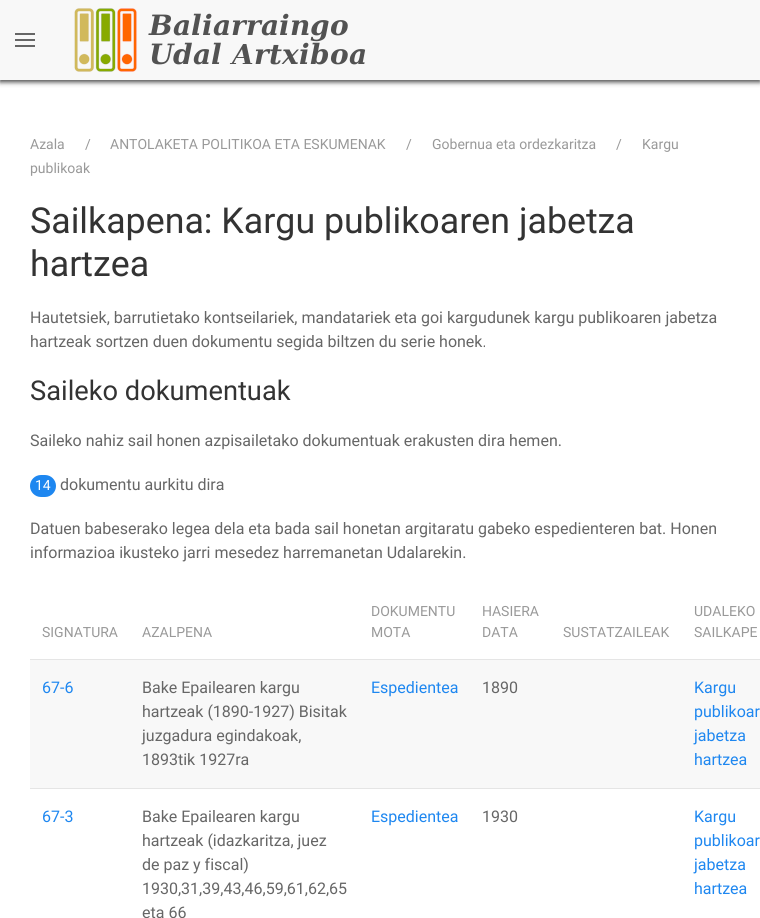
#include <cairo/cairo.h>
#include <math.h>
#include <stddef.h>


static void rounded_rect(cairo_t *cr, double x, double y, double w, double h, double r) {
  cairo_new_sub_path(cr);
  cairo_arc(cr, x + w - r, y + h - r, r, 0, M_PI / 2);
  cairo_arc(cr, x + r, y + h - r, r, M_PI / 2, M_PI);
  cairo_arc(cr, x + r, y + r, r, M_PI, 1.5 * M_PI);
  cairo_arc(cr, x + w - r, y + r, r, 1.5 * M_PI, 2 * M_PI);
  cairo_close_path(cr);
}

static void draw_shadow(cairo_t *cr, double x, double y, double w, double h, double r, double blur, double alpha) {
  cairo_push_group_with_content(cr, CAIRO_CONTENT_ALPHA);
  cairo_set_operator(cr, CAIRO_OPERATOR_SOURCE);
  for (int i = 15; i >= -15 && fmin(w, h) + blur * i / 3 > 0; i -= 2) {
    double e = blur * i / 6;
    cairo_set_source_rgba(cr, 0, 0, 0, alpha * erfc((i - 1) / 8.5) / 2);
    rounded_rect(cr, x - e, y - e, w + 2 * e, h + 2 * e, fmax(0, fmin(r + e + blur * .6, fmin(w, h) / 2 + e)));
    cairo_fill(cr);
  }
  cairo_pattern_t *soft = cairo_pop_group(cr);
  cairo_mask(cr, soft);
  cairo_pattern_destroy(soft);
}

static void draw_image(cairo_t *cr, const char *path, double x, double y, double w, double h) {
  cairo_surface_t *image = cairo_image_surface_create_from_png(path);
  cairo_save(cr);
  cairo_set_source_surface(cr, image, x, y);
  cairo_rectangle(cr, x, y, w, h);
  cairo_fill(cr);
  cairo_restore(cr);
  cairo_surface_destroy(image);
}

static void draw(cairo_t *cr) {
  cairo_set_source_rgb(cr, 1, 1, 1);
  cairo_paint(cr);
  cairo_set_source_rgb(cr, 0, 0, 0);
  draw_shadow(cr, 0, 2, 760, 80, 0, 2.5, 0.75);
  cairo_set_source_rgb(cr, 248 / 255.0, 248 / 255.0, 248 / 255.0);
  cairo_rectangle(cr, 0, 0, 760, 80);
  cairo_fill(cr);
  cairo_set_source_rgb(cr, 102 / 255.0, 102 / 255.0, 102 / 255.0);
  cairo_rectangle(cr, 15, 39, 20, 2);
  cairo_fill(cr);
  cairo_rectangle(cr, 15, 33, 20, 2);
  cairo_fill(cr);
  cairo_rectangle(cr, 15, 45, 20, 2);
  cairo_fill(cr);
  draw_image(cr, "images/1.png", 74, 8, 292, 64);
  cairo_set_source_rgb(cr, 30 / 255.0, 135 / 255.0, 240 / 255.0);
  rounded_rect(cr, 30, 475, 26, 22, 11);
  cairo_fill(cr);
  cairo_set_source_rgb(cr, 248 / 255.0, 248 / 255.0, 248 / 255.0);
  cairo_rectangle(cr, 30, 660, 730, 128);
  cairo_fill(cr);
  cairo_set_source_rgb(cr, 229 / 255.0, 229 / 255.0, 229 / 255.0);
  cairo_rectangle(cr, 30, 659, 730, 1);
  cairo_fill(cr);
  cairo_rectangle(cr, 30, 788, 730, 1);
  cairo_fill(cr);
  cairo_select_font_face(cr, "Roboto", CAIRO_FONT_SLANT_NORMAL, CAIRO_FONT_WEIGHT_NORMAL);
  cairo_set_font_size(cr, 14);
  cairo_set_source_rgb(cr, 153 / 255.0, 153 / 255.0, 153 / 255.0);
  cairo_move_to(cr, 30, 149);
  cairo_show_text(cr, "Azala");
  cairo_move_to(cr, 85, 149);
  cairo_show_text(cr, "/");
  cairo_move_to(cr, 110, 149);
  cairo_show_text(cr, "ANTOLAKETA POLITIKOA ETA ESKUMENAK");
  cairo_move_to(cr, 406, 149);
  cairo_show_text(cr, "/");
  cairo_move_to(cr, 432, 149);
  cairo_show_text(cr, "Gobernua eta ordezkaritza");
  cairo_move_to(cr, 616, 149);
  cairo_show_text(cr, "/");
  cairo_move_to(cr, 642, 149);
  cairo_show_text(cr, "Kargu");
  cairo_move_to(cr, 30, 173);
  cairo_show_text(cr, "publikoak");
  cairo_set_font_size(cr, 35.75);
  cairo_set_source_rgb(cr, 51 / 255.0, 51 / 255.0, 51 / 255.0);
  cairo_move_to(cr, 30, 233);
  cairo_show_text(cr, "Sailkapena: Kargu publikoaren jabetza");
  cairo_move_to(cr, 30, 276);
  cairo_show_text(cr, "hartzea");
  cairo_set_font_size(cr, 16);
  cairo_set_source_rgb(cr, 102 / 255.0, 102 / 255.0, 102 / 255.0);
  cairo_move_to(cr, 30, 323);
  cairo_show_text(cr, "Hautetsiek, barrutietako kontseilariek, mandatariek eta goi kargudunek kargu publikoaren jabetza");
  cairo_move_to(cr, 30, 347);
  cairo_show_text(cr, "hartzeak sortzen duen dokumentu segida biltzen du serie honek.");
  cairo_set_font_size(cr, 27.25);
  cairo_set_source_rgb(cr, 51 / 255.0, 51 / 255.0, 51 / 255.0);
  cairo_move_to(cr, 30, 400);
  cairo_show_text(cr, "Saileko dokumentuak");
  cairo_set_font_size(cr, 16);
  cairo_set_source_rgb(cr, 102 / 255.0, 102 / 255.0, 102 / 255.0);
  cairo_move_to(cr, 30, 446);
  cairo_show_text(cr, "Saileko nahiz sail honen azpisailetako dokumentuak erakusten dira hemen.");
  cairo_set_font_size(cr, 14);
  cairo_set_source_rgb(cr, 1, 1, 1);
  cairo_move_to(cr, 35, 490);
  cairo_show_text(cr, "14");
  cairo_set_font_size(cr, 16);
  cairo_set_source_rgb(cr, 102 / 255.0, 102 / 255.0, 102 / 255.0);
  cairo_move_to(cr, 60, 490);
  cairo_show_text(cr, "dokumentu aurkitu dira");
  cairo_move_to(cr, 30, 534);
  cairo_show_text(cr, "Datuen babeserako legea dela eta bada sail honetan argitaratu gabeko espedienteren bat. Honen");
  cairo_move_to(cr, 30, 558);
  cairo_show_text(cr, "informazioa ikusteko jarri mesedez harremanetan Udalarekin.");
  cairo_set_font_size(cr, 14);
  cairo_set_source_rgb(cr, 153 / 255.0, 153 / 255.0, 153 / 255.0);
  cairo_move_to(cr, 42, 637);
  cairo_show_text(cr, "SIGNATURA");
  cairo_move_to(cr, 142, 637);
  cairo_show_text(cr, "AZALPENA");
  cairo_move_to(cr, 371, 616);
  cairo_show_text(cr, "DOKUMENTU");
  cairo_move_to(cr, 371, 637);
  cairo_show_text(cr, "MOTA");
  cairo_move_to(cr, 482, 616);
  cairo_show_text(cr, "HASIERA");
  cairo_move_to(cr, 482, 637);
  cairo_show_text(cr, "DATA");
  cairo_move_to(cr, 563, 637);
  cairo_show_text(cr, "SUSTATZAILEAK");
  cairo_move_to(cr, 694, 616);
  cairo_show_text(cr, "UDALEKO");
  cairo_move_to(cr, 694, 637);
  cairo_show_text(cr, "SAILKAPE");
  cairo_set_font_size(cr, 16);
  cairo_set_source_rgb(cr, 30 / 255.0, 135 / 255.0, 240 / 255.0);
  cairo_move_to(cr, 42, 693);
  cairo_show_text(cr, "67-6");
  cairo_set_source_rgb(cr, 102 / 255.0, 102 / 255.0, 102 / 255.0);
  cairo_move_to(cr, 142, 693);
  cairo_show_text(cr, "Bake Epailearen kargu");
  cairo_move_to(cr, 142, 717);
  cairo_show_text(cr, "hartzeak (1890-1927) Bisitak");
  cairo_move_to(cr, 142, 741);
  cairo_show_text(cr, "juzgadura egindakoak,");
  cairo_move_to(cr, 142, 765);
  cairo_show_text(cr, "1893tik 1927ra");
  cairo_set_source_rgb(cr, 30 / 255.0, 135 / 255.0, 240 / 255.0);
  cairo_move_to(cr, 371, 693);
  cairo_show_text(cr, "Espedientea");
  cairo_set_source_rgb(cr, 102 / 255.0, 102 / 255.0, 102 / 255.0);
  cairo_move_to(cr, 482, 693);
  cairo_show_text(cr, "1890");
  cairo_set_source_rgb(cr, 30 / 255.0, 135 / 255.0, 240 / 255.0);
  cairo_move_to(cr, 694, 693);
  cairo_show_text(cr, "Kargu");
  cairo_move_to(cr, 694, 717);
  cairo_show_text(cr, "publikoar");
  cairo_move_to(cr, 694, 741);
  cairo_show_text(cr, "jabetza");
  cairo_move_to(cr, 694, 765);
  cairo_show_text(cr, "hartzea");
  cairo_move_to(cr, 42, 822);
  cairo_show_text(cr, "67-3");
  cairo_set_source_rgb(cr, 102 / 255.0, 102 / 255.0, 102 / 255.0);
  cairo_move_to(cr, 142, 822);
  cairo_show_text(cr, "Bake Epailearen kargu");
  cairo_move_to(cr, 142, 846);
  cairo_show_text(cr, "hartzeak (idazkaritza, juez");
  cairo_move_to(cr, 142, 870);
  cairo_show_text(cr, "de paz y fiscal)");
  cairo_move_to(cr, 142, 894);
  cairo_show_text(cr, "1930,31,39,43,46,59,61,62,65");
  cairo_move_to(cr, 142, 918);
  cairo_show_text(cr, "eta 66");
  cairo_set_source_rgb(cr, 30 / 255.0, 135 / 255.0, 240 / 255.0);
  cairo_move_to(cr, 371, 822);
  cairo_show_text(cr, "Espedientea");
  cairo_set_source_rgb(cr, 102 / 255.0, 102 / 255.0, 102 / 255.0);
  cairo_move_to(cr, 482, 822);
  cairo_show_text(cr, "1930");
  cairo_set_source_rgb(cr, 30 / 255.0, 135 / 255.0, 240 / 255.0);
  cairo_move_to(cr, 694, 822);
  cairo_show_text(cr, "Kargu");
  cairo_move_to(cr, 694, 846);
  cairo_show_text(cr, "publikoar");
  cairo_move_to(cr, 694, 870);
  cairo_show_text(cr, "jabetza");
  cairo_move_to(cr, 694, 894);
  cairo_show_text(cr, "hartzea");
}

int main(void) {
  cairo_surface_t *surface = cairo_image_surface_create(CAIRO_FORMAT_RGB24, 760, 918);
  cairo_t *cr = cairo_create(surface);
  cairo_font_options_t *options = cairo_font_options_create();
  cairo_font_options_set_hint_metrics(options, CAIRO_HINT_METRICS_OFF);
  cairo_font_options_set_hint_style(options, CAIRO_HINT_STYLE_NONE);
  cairo_set_font_options(cr, options);
  cairo_set_miter_limit(cr, 4);
  draw(cr);
  cairo_surface_write_to_png(surface, "out.png");
  cairo_font_options_destroy(options);
  cairo_destroy(cr);
  cairo_surface_destroy(surface);
  return 0;
}
